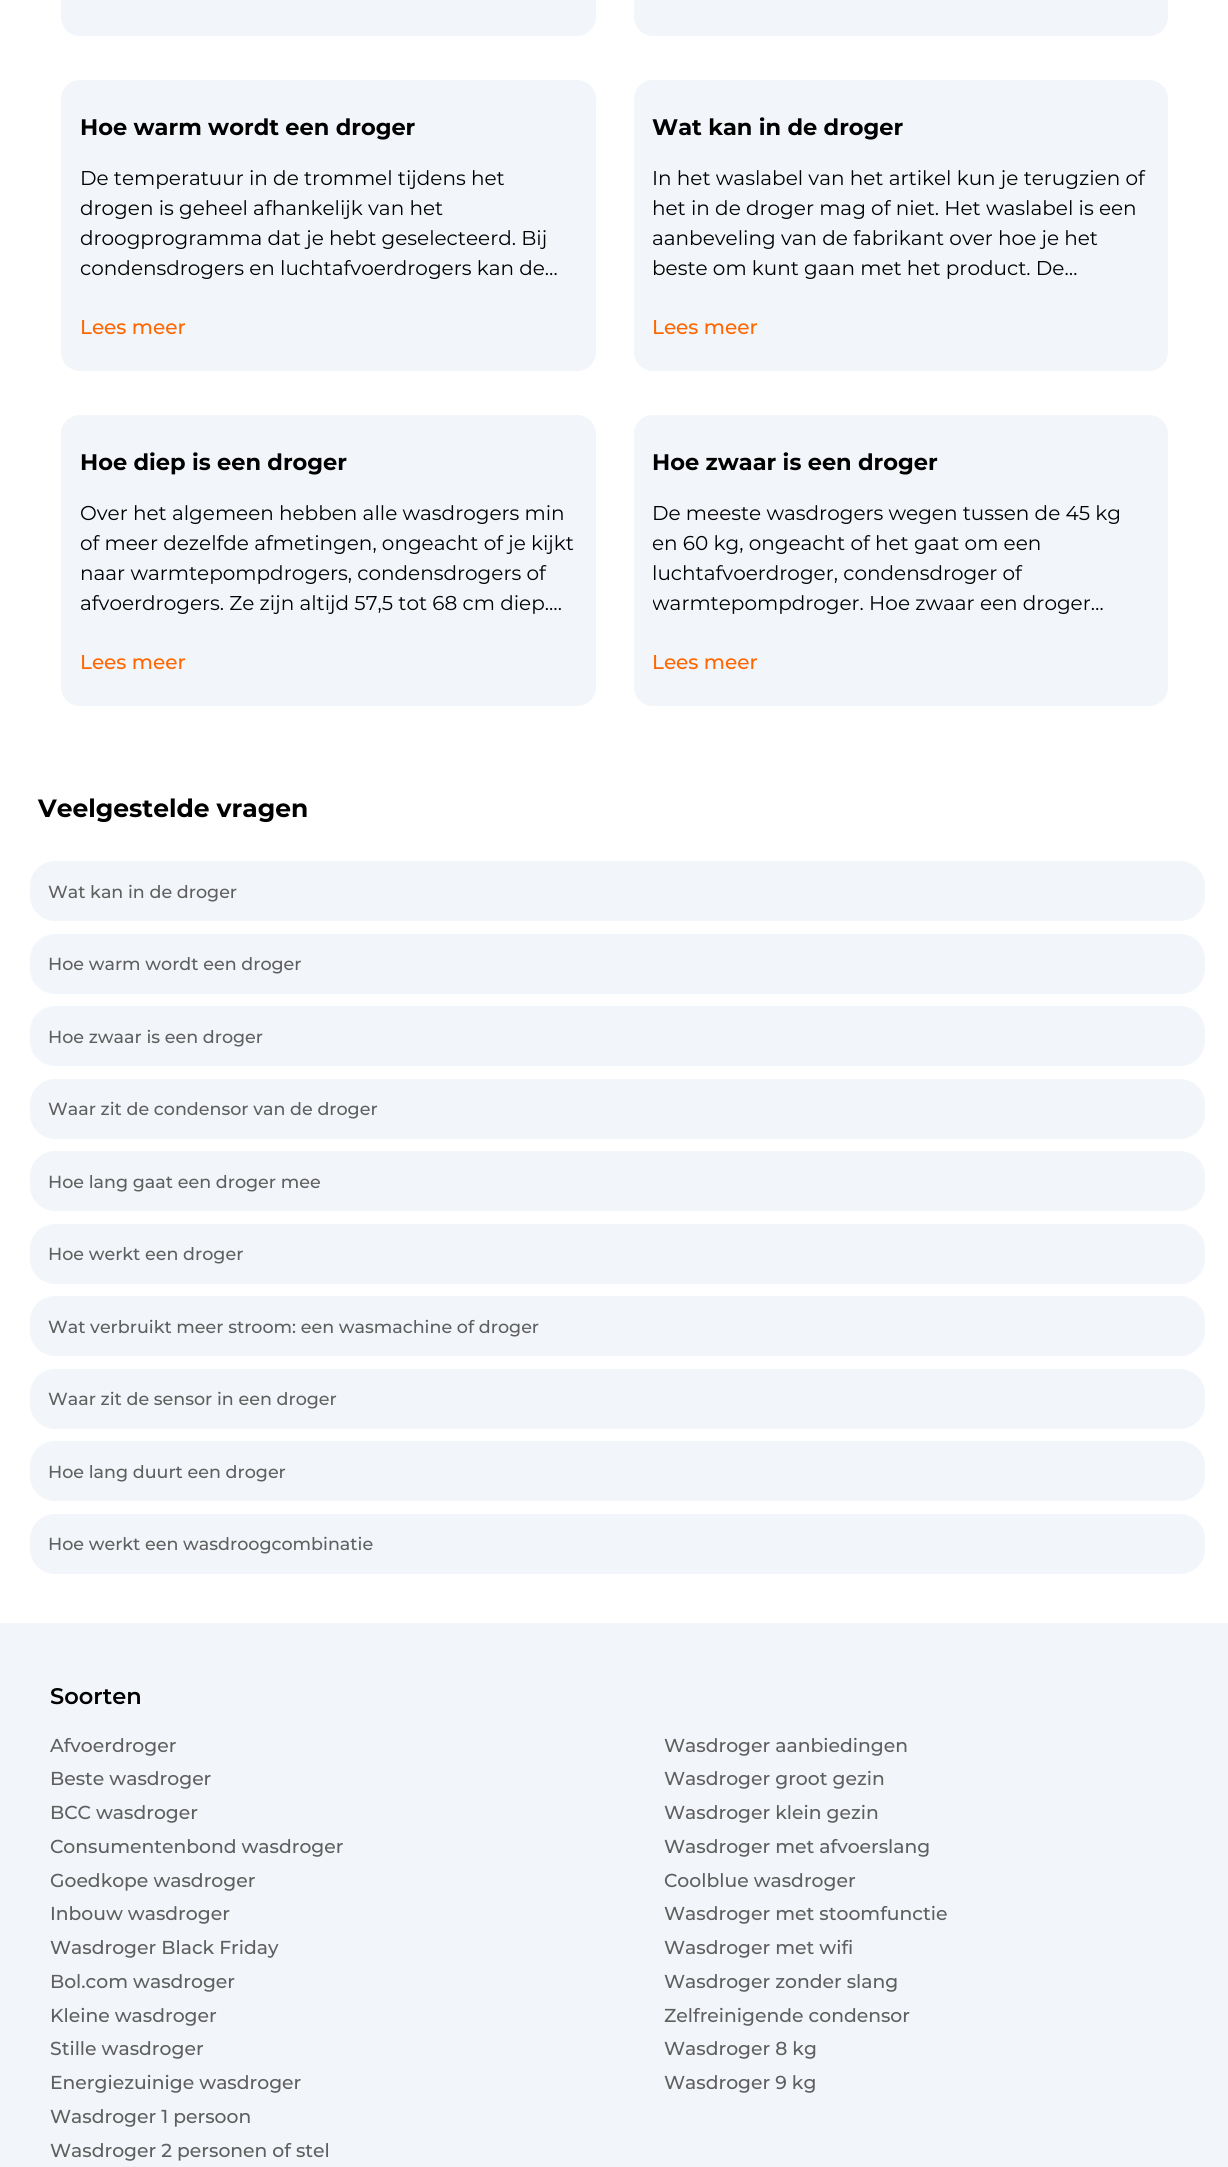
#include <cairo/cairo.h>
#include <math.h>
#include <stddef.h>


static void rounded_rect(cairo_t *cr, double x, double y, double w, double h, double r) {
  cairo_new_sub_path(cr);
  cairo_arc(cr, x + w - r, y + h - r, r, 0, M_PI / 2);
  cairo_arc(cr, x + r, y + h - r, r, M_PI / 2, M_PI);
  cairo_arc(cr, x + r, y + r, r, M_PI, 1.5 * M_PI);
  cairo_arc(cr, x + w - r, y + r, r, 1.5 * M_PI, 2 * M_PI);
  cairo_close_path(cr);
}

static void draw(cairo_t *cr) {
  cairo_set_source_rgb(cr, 1, 1, 1);
  cairo_paint(cr);
  cairo_set_source_rgb(cr, 242 / 255.0, 245 / 255.0, 249 / 255.0);
  rounded_rect(cr, 61, -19, 535, 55, 19);
  cairo_fill(cr);
  rounded_rect(cr, 634, -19, 534, 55, 19);
  cairo_fill(cr);
  rounded_rect(cr, 61, 80, 535, 291, 19);
  cairo_fill(cr);
  rounded_rect(cr, 634, 80, 534, 291, 19);
  cairo_fill(cr);
  rounded_rect(cr, 61, 415, 535, 291, 19);
  cairo_fill(cr);
  rounded_rect(cr, 634, 415, 534, 291, 19);
  cairo_fill(cr);
  rounded_rect(cr, 30, 861, 1175, 60, 25);
  cairo_fill(cr);
  rounded_rect(cr, 30, 934, 1175, 60, 25);
  cairo_fill(cr);
  rounded_rect(cr, 30, 1006, 1175, 60, 25);
  cairo_fill(cr);
  rounded_rect(cr, 30, 1079, 1175, 60, 25);
  cairo_fill(cr);
  rounded_rect(cr, 30, 1151, 1175, 60, 25);
  cairo_fill(cr);
  rounded_rect(cr, 30, 1224, 1175, 60, 25);
  cairo_fill(cr);
  rounded_rect(cr, 30, 1296, 1175, 60, 25);
  cairo_fill(cr);
  rounded_rect(cr, 30, 1369, 1175, 60, 25);
  cairo_fill(cr);
  rounded_rect(cr, 30, 1441, 1175, 60, 25);
  cairo_fill(cr);
  rounded_rect(cr, 30, 1514, 1175, 60, 25);
  cairo_fill(cr);
  cairo_rectangle(cr, 0, 1623, 1228, 544);
  cairo_fill(cr);
  cairo_select_font_face(cr, "Montserrat", CAIRO_FONT_SLANT_NORMAL, CAIRO_FONT_WEIGHT_BOLD);
  cairo_set_font_size(cr, 22.5);
  cairo_set_source_rgb(cr, 0, 0, 0);
  cairo_move_to(cr, 80, 135);
  cairo_show_text(cr, "Hoe warm wordt een droger");
  cairo_select_font_face(cr, "Montserrat", CAIRO_FONT_SLANT_NORMAL, CAIRO_FONT_WEIGHT_NORMAL);
  cairo_set_font_size(cr, 20);
  cairo_move_to(cr, 80, 185);
  cairo_show_text(cr, "De temperatuur in de trommel tijdens het");
  cairo_move_to(cr, 80, 215);
  cairo_show_text(cr, "drogen is geheel afhankelijk van het");
  cairo_move_to(cr, 80, 245);
  cairo_show_text(cr, "droogprogramma dat je hebt geselecteerd. Bij");
  cairo_move_to(cr, 80, 275);
  cairo_show_text(cr, "condensdrogers en luchtafvoerdrogers kan de…");
  cairo_select_font_face(cr, "Montserrat Medium", CAIRO_FONT_SLANT_NORMAL, CAIRO_FONT_WEIGHT_NORMAL);
  cairo_set_source_rgb(cr, 1, 102 / 255.0, 0);
  cairo_move_to(cr, 80, 334);
  cairo_show_text(cr, "Lees meer");
  cairo_select_font_face(cr, "Montserrat", CAIRO_FONT_SLANT_NORMAL, CAIRO_FONT_WEIGHT_BOLD);
  cairo_set_font_size(cr, 22.5);
  cairo_set_source_rgb(cr, 0, 0, 0);
  cairo_move_to(cr, 652, 135);
  cairo_show_text(cr, "Wat kan in de droger");
  cairo_select_font_face(cr, "Montserrat", CAIRO_FONT_SLANT_NORMAL, CAIRO_FONT_WEIGHT_NORMAL);
  cairo_set_font_size(cr, 20);
  cairo_move_to(cr, 652, 185);
  cairo_show_text(cr, "In het waslabel van het artikel kun je terugzien of");
  cairo_move_to(cr, 652, 215);
  cairo_show_text(cr, "het in de droger mag of niet. Het waslabel is een");
  cairo_move_to(cr, 652, 245);
  cairo_show_text(cr, "aanbeveling van de fabrikant over hoe je het");
  cairo_move_to(cr, 652, 275);
  cairo_show_text(cr, "beste om kunt gaan met het product. De…");
  cairo_select_font_face(cr, "Montserrat Medium", CAIRO_FONT_SLANT_NORMAL, CAIRO_FONT_WEIGHT_NORMAL);
  cairo_set_source_rgb(cr, 1, 102 / 255.0, 0);
  cairo_move_to(cr, 652, 334);
  cairo_show_text(cr, "Lees meer");
  cairo_select_font_face(cr, "Montserrat", CAIRO_FONT_SLANT_NORMAL, CAIRO_FONT_WEIGHT_BOLD);
  cairo_set_font_size(cr, 22.5);
  cairo_set_source_rgb(cr, 0, 0, 0);
  cairo_move_to(cr, 80, 470);
  cairo_show_text(cr, "Hoe diep is een droger");
  cairo_select_font_face(cr, "Montserrat", CAIRO_FONT_SLANT_NORMAL, CAIRO_FONT_WEIGHT_NORMAL);
  cairo_set_font_size(cr, 20);
  cairo_move_to(cr, 80, 520);
  cairo_show_text(cr, "Over het algemeen hebben alle wasdrogers min");
  cairo_move_to(cr, 80, 550);
  cairo_show_text(cr, "of meer dezelfde afmetingen, ongeacht of je kijkt");
  cairo_move_to(cr, 80, 580);
  cairo_show_text(cr, "naar warmtepompdrogers, condensdrogers of");
  cairo_move_to(cr, 80, 610);
  cairo_show_text(cr, "afvoerdrogers. Ze zijn altijd 57,5 tot 68 cm diep.…");
  cairo_select_font_face(cr, "Montserrat Medium", CAIRO_FONT_SLANT_NORMAL, CAIRO_FONT_WEIGHT_NORMAL);
  cairo_set_source_rgb(cr, 1, 102 / 255.0, 0);
  cairo_move_to(cr, 80, 669);
  cairo_show_text(cr, "Lees meer");
  cairo_select_font_face(cr, "Montserrat", CAIRO_FONT_SLANT_NORMAL, CAIRO_FONT_WEIGHT_BOLD);
  cairo_set_font_size(cr, 22.5);
  cairo_set_source_rgb(cr, 0, 0, 0);
  cairo_move_to(cr, 652, 470);
  cairo_show_text(cr, "Hoe zwaar is een droger");
  cairo_select_font_face(cr, "Montserrat", CAIRO_FONT_SLANT_NORMAL, CAIRO_FONT_WEIGHT_NORMAL);
  cairo_set_font_size(cr, 20);
  cairo_move_to(cr, 652, 520);
  cairo_show_text(cr, "De meeste wasdrogers wegen tussen de 45 kg");
  cairo_move_to(cr, 652, 550);
  cairo_show_text(cr, "en 60 kg, ongeacht of het gaat om een");
  cairo_move_to(cr, 652, 580);
  cairo_show_text(cr, "luchtafvoerdroger, condensdroger of");
  cairo_save(cr);
  cairo_rectangle(cr, 653, 499, 496, 120);
  cairo_clip(cr);
  cairo_move_to(cr, 652, 610);
  cairo_show_text(cr, "warmtepompdroger. Hoe zwaar een droger…");
  cairo_restore(cr);
  cairo_select_font_face(cr, "Montserrat Medium", CAIRO_FONT_SLANT_NORMAL, CAIRO_FONT_WEIGHT_NORMAL);
  cairo_set_source_rgb(cr, 1, 102 / 255.0, 0);
  cairo_move_to(cr, 652, 669);
  cairo_show_text(cr, "Lees meer");
  cairo_select_font_face(cr, "Montserrat", CAIRO_FONT_SLANT_NORMAL, CAIRO_FONT_WEIGHT_BOLD);
  cairo_set_font_size(cr, 25);
  cairo_set_source_rgb(cr, 0, 0, 0);
  cairo_move_to(cr, 38, 817);
  cairo_show_text(cr, "Veelgestelde vragen");
  cairo_select_font_face(cr, "Montserrat Medium", CAIRO_FONT_SLANT_NORMAL, CAIRO_FONT_WEIGHT_NORMAL);
  cairo_set_font_size(cr, 17.5);
  cairo_set_source_rgb(cr, 95 / 255.0, 95 / 255.0, 95 / 255.0);
  cairo_move_to(cr, 48, 898);
  cairo_show_text(cr, "Wat kan in de droger");
  cairo_move_to(cr, 48, 970);
  cairo_show_text(cr, "Hoe warm wordt een droger");
  cairo_move_to(cr, 48, 1043);
  cairo_show_text(cr, "Hoe zwaar is een droger");
  cairo_move_to(cr, 48, 1115);
  cairo_show_text(cr, "Waar zit de condensor van de droger");
  cairo_move_to(cr, 48, 1188);
  cairo_show_text(cr, "Hoe lang gaat een droger mee");
  cairo_move_to(cr, 48, 1260);
  cairo_show_text(cr, "Hoe werkt een droger");
  cairo_move_to(cr, 48, 1333);
  cairo_show_text(cr, "Wat verbruikt meer stroom: een wasmachine of droger");
  cairo_move_to(cr, 48, 1405);
  cairo_show_text(cr, "Waar zit de sensor in een droger");
  cairo_move_to(cr, 48, 1478);
  cairo_show_text(cr, "Hoe lang duurt een droger");
  cairo_move_to(cr, 48, 1550);
  cairo_show_text(cr, "Hoe werkt een wasdroogcombinatie");
  cairo_select_font_face(cr, "Montserrat SemiBold", CAIRO_FONT_SLANT_NORMAL, CAIRO_FONT_WEIGHT_NORMAL);
  cairo_set_font_size(cr, 22.5);
  cairo_set_source_rgb(cr, 0, 0, 0);
  cairo_move_to(cr, 50, 1704);
  cairo_show_text(cr, "Soorten");
  cairo_select_font_face(cr, "Montserrat Medium", CAIRO_FONT_SLANT_NORMAL, CAIRO_FONT_WEIGHT_NORMAL);
  cairo_set_font_size(cr, 18.75);
  cairo_set_source_rgb(cr, 95 / 255.0, 95 / 255.0, 95 / 255.0);
  cairo_move_to(cr, 50, 1752);
  cairo_show_text(cr, "Afvoerdroger");
  cairo_move_to(cr, 50, 1785);
  cairo_show_text(cr, "Beste wasdroger");
  cairo_move_to(cr, 50, 1819);
  cairo_show_text(cr, "BCC wasdroger");
  cairo_move_to(cr, 50, 1853);
  cairo_show_text(cr, "Consumentenbond wasdroger");
  cairo_move_to(cr, 50, 1887);
  cairo_show_text(cr, "Goedkope wasdroger");
  cairo_move_to(cr, 50, 1920);
  cairo_show_text(cr, "Inbouw wasdroger");
  cairo_move_to(cr, 50, 1954);
  cairo_show_text(cr, "Wasdroger Black Friday");
  cairo_move_to(cr, 50, 1988);
  cairo_show_text(cr, "Bol.com wasdroger");
  cairo_move_to(cr, 50, 2022);
  cairo_show_text(cr, "Kleine wasdroger");
  cairo_move_to(cr, 50, 2055);
  cairo_show_text(cr, "Stille wasdroger");
  cairo_move_to(cr, 50, 2089);
  cairo_show_text(cr, "Energiezuinige wasdroger");
  cairo_move_to(cr, 50, 2123);
  cairo_show_text(cr, "Wasdroger 1 persoon");
  cairo_move_to(cr, 50, 2157);
  cairo_show_text(cr, "Wasdroger 2 personen of stel");
  cairo_move_to(cr, 664, 1752);
  cairo_show_text(cr, "Wasdroger aanbiedingen");
  cairo_move_to(cr, 664, 1785);
  cairo_show_text(cr, "Wasdroger groot gezin");
  cairo_move_to(cr, 664, 1819);
  cairo_show_text(cr, "Wasdroger klein gezin");
  cairo_move_to(cr, 664, 1853);
  cairo_show_text(cr, "Wasdroger met afvoerslang");
  cairo_move_to(cr, 664, 1887);
  cairo_show_text(cr, "Coolblue wasdroger");
  cairo_move_to(cr, 664, 1920);
  cairo_show_text(cr, "Wasdroger met stoomfunctie");
  cairo_move_to(cr, 664, 1954);
  cairo_show_text(cr, "Wasdroger met wifi");
  cairo_move_to(cr, 664, 1988);
  cairo_show_text(cr, "Wasdroger zonder slang");
  cairo_move_to(cr, 664, 2022);
  cairo_show_text(cr, "Zelfreinigende condensor");
  cairo_move_to(cr, 664, 2055);
  cairo_show_text(cr, "Wasdroger 8 kg");
  cairo_move_to(cr, 664, 2089);
  cairo_show_text(cr, "Wasdroger 9 kg");
}

int main(void) {
  cairo_surface_t *surface = cairo_image_surface_create(CAIRO_FORMAT_RGB24, 1228, 2167);
  cairo_t *cr = cairo_create(surface);
  cairo_font_options_t *options = cairo_font_options_create();
  cairo_font_options_set_hint_metrics(options, CAIRO_HINT_METRICS_OFF);
  cairo_font_options_set_hint_style(options, CAIRO_HINT_STYLE_NONE);
  cairo_set_font_options(cr, options);
  cairo_set_miter_limit(cr, 4);
  draw(cr);
  cairo_surface_write_to_png(surface, "out.png");
  cairo_font_options_destroy(options);
  cairo_destroy(cr);
  cairo_surface_destroy(surface);
  return 0;
}
